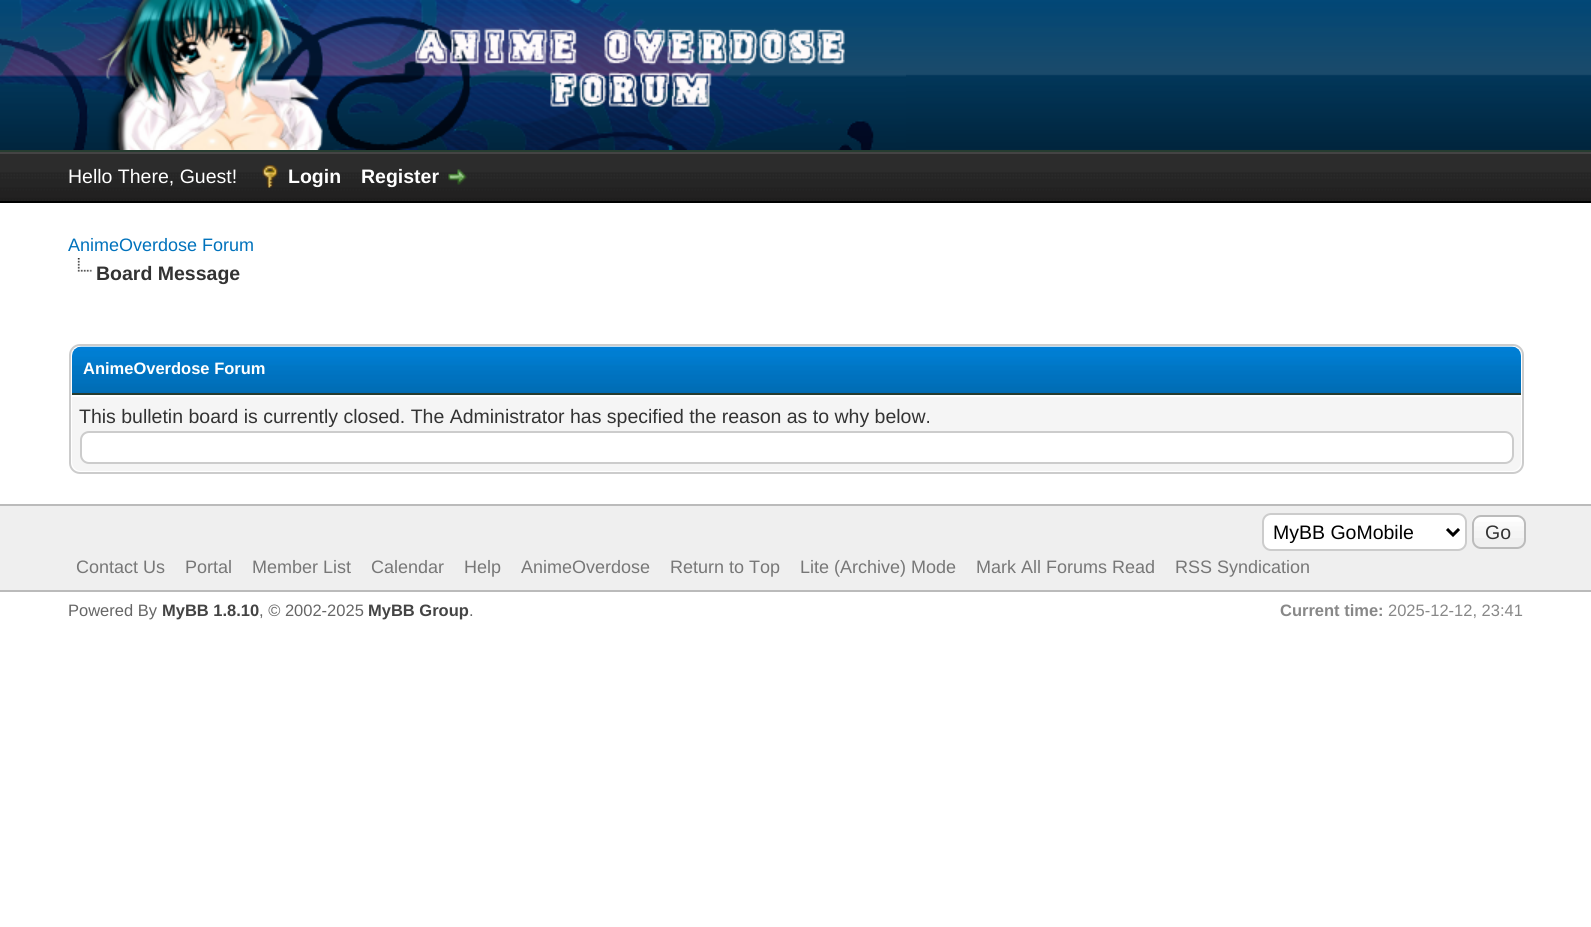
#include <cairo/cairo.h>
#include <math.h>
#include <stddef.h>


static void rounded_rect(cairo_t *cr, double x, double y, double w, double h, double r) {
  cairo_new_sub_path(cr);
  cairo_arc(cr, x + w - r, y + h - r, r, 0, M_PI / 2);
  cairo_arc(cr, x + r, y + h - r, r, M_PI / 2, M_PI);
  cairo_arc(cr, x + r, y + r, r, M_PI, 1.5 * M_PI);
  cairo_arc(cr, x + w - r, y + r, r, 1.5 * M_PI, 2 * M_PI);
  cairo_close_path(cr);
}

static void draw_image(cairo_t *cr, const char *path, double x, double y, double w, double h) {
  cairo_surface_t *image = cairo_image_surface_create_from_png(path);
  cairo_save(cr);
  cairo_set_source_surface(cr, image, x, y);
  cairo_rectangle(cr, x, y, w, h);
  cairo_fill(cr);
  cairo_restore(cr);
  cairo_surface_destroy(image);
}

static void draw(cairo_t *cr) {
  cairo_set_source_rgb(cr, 1, 1, 1);
  cairo_paint(cr);
  draw_image(cr, "images/1.png", 906, 0, 685, 150);
  cairo_set_source_rgb(cr, 38 / 255.0, 60 / 255.0, 48 / 255.0);
  cairo_rectangle(cr, 0, 150, 1591, 2);
  cairo_fill(cr);
  draw_image(cr, "images/2.png", 0, 0, 906, 150);
  draw_image(cr, "images/3.png", 0, 154, 1591, 47);
  cairo_set_source_rgb(cr, 68 / 255.0, 68 / 255.0, 68 / 255.0);
  cairo_rectangle(cr, 0, 152, 1591, 2);
  cairo_fill(cr);
  cairo_set_source_rgb(cr, 0, 0, 0);
  cairo_rectangle(cr, 0, 201, 1591, 2);
  cairo_fill(cr);
  draw_image(cr, "images/4.png", 262, 165, 16, 23);
  draw_image(cr, "images/5.png", 448, 169, 19, 16);
  draw_image(cr, "images/6.png", 77, 258, 15, 14);
  rounded_rect(cr, 70, 345, 1453, 128, 10);
  cairo_set_source_rgb(cr, 204 / 255.0, 204 / 255.0, 204 / 255.0);
  cairo_stroke(cr);
  draw_image(cr, "images/7.png", 72, 346, 1449, 47);
  cairo_set_source_rgb(cr, 38 / 255.0, 60 / 255.0, 48 / 255.0);
  cairo_rectangle(cr, 72, 393, 1449, 2);
  cairo_fill(cr);
  cairo_set_source_rgb(cr, 245 / 255.0, 245 / 255.0, 245 / 255.0);
  cairo_new_path(cr);
  cairo_move_to(cr, 72, 395);
  cairo_line_to(cr, 1521, 395);
  cairo_line_to(cr, 1521, 462);
  cairo_curve_to(cr, 1521, 467, 1517, 471, 1512, 471);
  cairo_line_to(cr, 81, 471);
  cairo_curve_to(cr, 76, 471, 72, 467, 72, 462);
  cairo_close_path(cr);
  cairo_fill(cr);
  cairo_set_source_rgb(cr, 1, 1, 1);
  cairo_rectangle(cr, 72, 395, 1449, 2);
  cairo_fill(cr);
  rounded_rect(cr, 81, 432, 1432, 31, 8);
  cairo_fill_preserve(cr);
  cairo_set_source_rgb(cr, 204 / 255.0, 204 / 255.0, 204 / 255.0);
  cairo_stroke(cr);
  cairo_set_source_rgb(cr, 239 / 255.0, 239 / 255.0, 239 / 255.0);
  cairo_rectangle(cr, 0, 506, 1591, 84);
  cairo_fill(cr);
  cairo_set_source_rgb(cr, 187 / 255.0, 187 / 255.0, 187 / 255.0);
  cairo_rectangle(cr, 0, 504, 1591, 2);
  cairo_fill(cr);
  cairo_rectangle(cr, 0, 590, 1591, 2);
  cairo_fill(cr);
  cairo_set_source_rgb(cr, 1, 1, 1);
  rounded_rect(cr, 1263, 514, 203, 36, 8);
  cairo_fill_preserve(cr);
  cairo_set_source_rgb(cr, 204 / 255.0, 204 / 255.0, 204 / 255.0);
  cairo_stroke(cr);
  cairo_new_path(cr);
  cairo_move_to(cr, 1447, 529);
  cairo_line_to(cr, 1453, 535);
  cairo_line_to(cr, 1459, 529);
  cairo_set_source_rgb(cr, 0, 0, 0);
  cairo_set_line_width(cr, 3);
  cairo_stroke(cr);
  draw_image(cr, "images/8.png", 1472, 516, 53, 22);
  rounded_rect(cr, 1473, 516, 52, 32, 8);
  cairo_set_source_rgb(cr, 187 / 255.0, 187 / 255.0, 187 / 255.0);
  cairo_set_line_width(cr, 2);
  cairo_stroke(cr);
  cairo_select_font_face(cr, "Liberation Sans", CAIRO_FONT_SLANT_NORMAL, CAIRO_FONT_WEIGHT_NORMAL);
  cairo_set_font_size(cr, 19.5);
  cairo_set_source_rgb(cr, 1, 1, 1);
  cairo_move_to(cr, 68, 183);
  cairo_show_text(cr, "Hello There, Guest!");
  cairo_select_font_face(cr, "Liberation Sans", CAIRO_FONT_SLANT_NORMAL, CAIRO_FONT_WEIGHT_BOLD);
  cairo_move_to(cr, 288, 183);
  cairo_show_text(cr, "Login");
  cairo_move_to(cr, 361, 183);
  cairo_show_text(cr, "Register");
  cairo_select_font_face(cr, "Liberation Sans", CAIRO_FONT_SLANT_NORMAL, CAIRO_FONT_WEIGHT_NORMAL);
  cairo_set_font_size(cr, 18);
  cairo_set_source_rgb(cr, 0, 114 / 255.0, 188 / 255.0);
  cairo_move_to(cr, 68, 251);
  cairo_show_text(cr, "AnimeOverdose Forum");
  cairo_select_font_face(cr, "Liberation Sans", CAIRO_FONT_SLANT_NORMAL, CAIRO_FONT_WEIGHT_BOLD);
  cairo_set_font_size(cr, 19.5);
  cairo_set_source_rgb(cr, 51 / 255.0, 51 / 255.0, 51 / 255.0);
  cairo_move_to(cr, 96, 280);
  cairo_show_text(cr, "Board Message");
  cairo_set_font_size(cr, 16.5);
  cairo_set_source_rgb(cr, 1, 1, 1);
  cairo_move_to(cr, 83, 374);
  cairo_show_text(cr, "AnimeOverdose Forum");
  cairo_select_font_face(cr, "Liberation Sans", CAIRO_FONT_SLANT_NORMAL, CAIRO_FONT_WEIGHT_NORMAL);
  cairo_set_font_size(cr, 19.5);
  cairo_set_source_rgb(cr, 51 / 255.0, 51 / 255.0, 51 / 255.0);
  cairo_move_to(cr, 79, 423);
  cairo_show_text(cr, "This bulletin board is currently closed. The Administrator has specified the reason as to why below.");
  cairo_set_source_rgb(cr, 0, 0, 0);
  cairo_move_to(cr, 1273, 539);
  cairo_show_text(cr, "MyBB GoMobile");
  cairo_set_source_rgb(cr, 51 / 255.0, 51 / 255.0, 51 / 255.0);
  cairo_move_to(cr, 1485, 539);
  cairo_show_text(cr, "Go");
  cairo_set_font_size(cr, 18);
  cairo_set_source_rgb(cr, 119 / 255.0, 119 / 255.0, 119 / 255.0);
  cairo_move_to(cr, 76, 573);
  cairo_show_text(cr, "Contact Us");
  cairo_move_to(cr, 185, 573);
  cairo_show_text(cr, "Portal");
  cairo_move_to(cr, 252, 573);
  cairo_show_text(cr, "Member List");
  cairo_move_to(cr, 371, 573);
  cairo_show_text(cr, "Calendar");
  cairo_move_to(cr, 464, 573);
  cairo_show_text(cr, "Help");
  cairo_move_to(cr, 521, 573);
  cairo_show_text(cr, "AnimeOverdose");
  cairo_move_to(cr, 670, 573);
  cairo_show_text(cr, "Return to Top");
  cairo_move_to(cr, 800, 573);
  cairo_show_text(cr, "Lite (Archive) Mode");
  cairo_move_to(cr, 976, 573);
  cairo_show_text(cr, "Mark All Forums Read");
  cairo_move_to(cr, 1175, 573);
  cairo_show_text(cr, "RSS Syndication");
  cairo_set_font_size(cr, 16.5);
  cairo_set_source_rgb(cr, 102 / 255.0, 102 / 255.0, 102 / 255.0);
  cairo_move_to(cr, 68, 616);
  cairo_show_text(cr, "Powered By");
  cairo_select_font_face(cr, "Liberation Sans", CAIRO_FONT_SLANT_NORMAL, CAIRO_FONT_WEIGHT_BOLD);
  cairo_set_source_rgb(cr, 68 / 255.0, 68 / 255.0, 68 / 255.0);
  cairo_move_to(cr, 162, 616);
  cairo_show_text(cr, "MyBB 1.8.10");
  cairo_select_font_face(cr, "Liberation Sans", CAIRO_FONT_SLANT_NORMAL, CAIRO_FONT_WEIGHT_NORMAL);
  cairo_set_source_rgb(cr, 102 / 255.0, 102 / 255.0, 102 / 255.0);
  cairo_move_to(cr, 259, 616);
  cairo_show_text(cr, ", © 2002-2025");
  cairo_select_font_face(cr, "Liberation Sans", CAIRO_FONT_SLANT_NORMAL, CAIRO_FONT_WEIGHT_BOLD);
  cairo_set_source_rgb(cr, 68 / 255.0, 68 / 255.0, 68 / 255.0);
  cairo_move_to(cr, 368, 616);
  cairo_show_text(cr, "MyBB Group");
  cairo_select_font_face(cr, "Liberation Sans", CAIRO_FONT_SLANT_NORMAL, CAIRO_FONT_WEIGHT_NORMAL);
  cairo_set_source_rgb(cr, 102 / 255.0, 102 / 255.0, 102 / 255.0);
  cairo_move_to(cr, 469, 616);
  cairo_show_text(cr, ".");
  cairo_select_font_face(cr, "Liberation Sans", CAIRO_FONT_SLANT_NORMAL, CAIRO_FONT_WEIGHT_BOLD);
  cairo_set_source_rgb(cr, 136 / 255.0, 136 / 255.0, 136 / 255.0);
  cairo_move_to(cr, 1280, 616);
  cairo_show_text(cr, "Current time:");
  cairo_select_font_face(cr, "Liberation Sans", CAIRO_FONT_SLANT_NORMAL, CAIRO_FONT_WEIGHT_NORMAL);
  cairo_move_to(cr, 1388, 616);
  cairo_show_text(cr, "2025-12-12, 23:41");
}

int main(void) {
  cairo_surface_t *surface = cairo_image_surface_create(CAIRO_FORMAT_RGB24, 1591, 927);
  cairo_t *cr = cairo_create(surface);
  cairo_font_options_t *options = cairo_font_options_create();
  cairo_font_options_set_hint_metrics(options, CAIRO_HINT_METRICS_OFF);
  cairo_font_options_set_hint_style(options, CAIRO_HINT_STYLE_NONE);
  cairo_set_font_options(cr, options);
  cairo_set_miter_limit(cr, 4);
  draw(cr);
  cairo_surface_write_to_png(surface, "out.png");
  cairo_font_options_destroy(options);
  cairo_destroy(cr);
  cairo_surface_destroy(surface);
  return 0;
}
